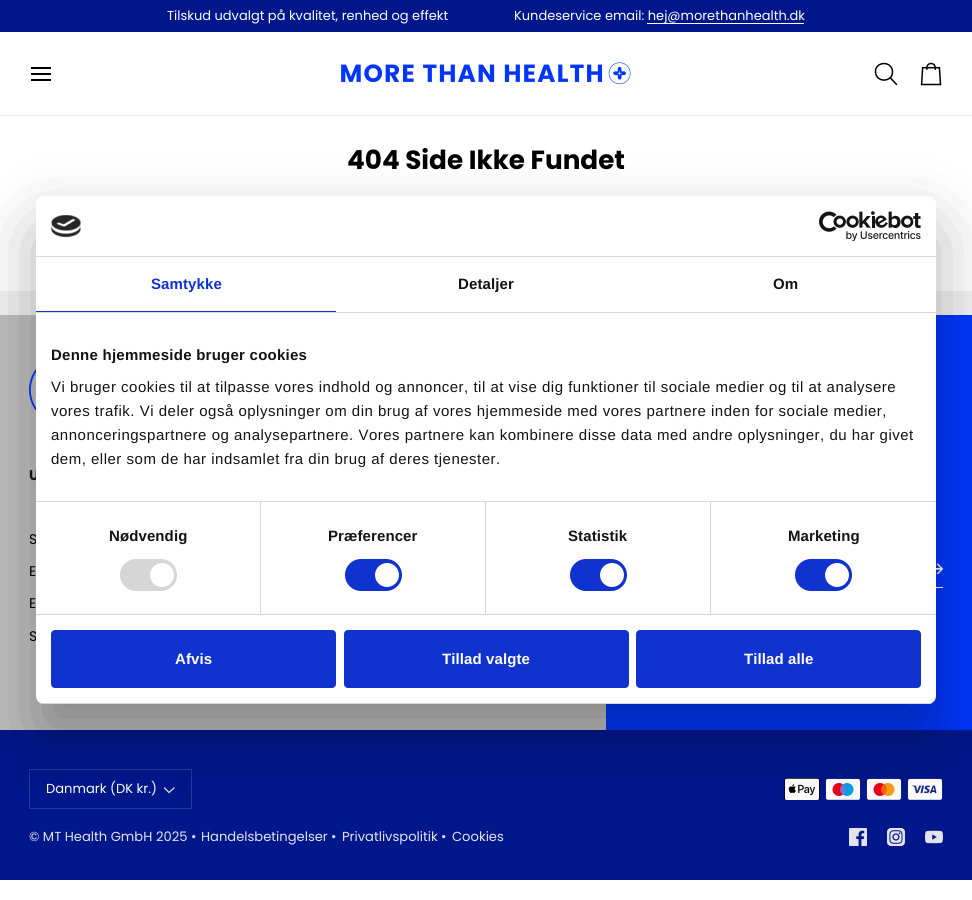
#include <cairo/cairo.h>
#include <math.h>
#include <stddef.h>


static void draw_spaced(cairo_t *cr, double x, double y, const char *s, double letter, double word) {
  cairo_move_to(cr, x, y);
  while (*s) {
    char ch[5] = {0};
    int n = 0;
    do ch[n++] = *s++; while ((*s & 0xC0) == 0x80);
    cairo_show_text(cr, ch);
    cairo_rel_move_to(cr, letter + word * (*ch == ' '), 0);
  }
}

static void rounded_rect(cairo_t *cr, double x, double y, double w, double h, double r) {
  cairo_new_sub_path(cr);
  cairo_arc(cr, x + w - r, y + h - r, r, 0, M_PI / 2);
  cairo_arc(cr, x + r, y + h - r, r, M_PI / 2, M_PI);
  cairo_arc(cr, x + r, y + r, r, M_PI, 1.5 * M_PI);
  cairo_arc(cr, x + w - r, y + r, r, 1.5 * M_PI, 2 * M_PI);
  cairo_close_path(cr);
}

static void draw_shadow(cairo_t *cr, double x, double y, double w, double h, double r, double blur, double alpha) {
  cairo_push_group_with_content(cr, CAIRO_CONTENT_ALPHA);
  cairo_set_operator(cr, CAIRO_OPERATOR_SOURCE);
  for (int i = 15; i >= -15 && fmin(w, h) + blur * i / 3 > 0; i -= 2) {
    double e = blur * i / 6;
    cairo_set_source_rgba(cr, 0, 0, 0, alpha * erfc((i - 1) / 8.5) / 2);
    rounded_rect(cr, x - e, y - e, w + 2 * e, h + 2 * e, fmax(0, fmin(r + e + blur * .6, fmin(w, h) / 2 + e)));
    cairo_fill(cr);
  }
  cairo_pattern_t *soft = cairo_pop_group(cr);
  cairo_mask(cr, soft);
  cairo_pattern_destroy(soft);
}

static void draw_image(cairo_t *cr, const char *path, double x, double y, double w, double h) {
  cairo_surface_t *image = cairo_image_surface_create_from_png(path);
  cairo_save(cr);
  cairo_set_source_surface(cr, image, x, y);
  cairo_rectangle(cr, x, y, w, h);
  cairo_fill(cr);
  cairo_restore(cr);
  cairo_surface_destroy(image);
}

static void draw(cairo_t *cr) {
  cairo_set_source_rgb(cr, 1, 1, 1);
  cairo_paint(cr);
  cairo_set_source_rgb(cr, 0, 23 / 255.0, 140 / 255.0);
  cairo_rectangle(cr, 0, 0, 972, 32);
  cairo_fill(cr);
  cairo_set_source_rgb(cr, 1, 1, 1);
  cairo_rectangle(cr, 647, 23, 157, 1);
  cairo_fill(cr);
  cairo_set_source_rgb(cr, 248 / 255.0, 240 / 255.0, 231 / 255.0);
  cairo_rectangle(cr, 0, 115, 972, 1);
  cairo_fill(cr);
  cairo_new_path(cr);
  cairo_move_to(cr, 50, 68);
  cairo_line_to(cr, 32, 68);
  cairo_move_to(cr, 50, 74);
  cairo_line_to(cr, 32, 74);
  cairo_move_to(cr, 50, 80);
  cairo_line_to(cr, 32, 80);
  cairo_set_source_rgb(cr, 0, 0, 0);
  cairo_set_line_cap(cr, CAIRO_LINE_CAP_SQUARE);
  cairo_stroke(cr);
  draw_image(cr, "images/1.png", 341, 62, 290, 23);
  cairo_new_path(cr);
  cairo_move_to(cr, 892.5, 72);
  cairo_curve_to(cr, 892.5, 82.5, 876, 83, 875.5, 72);
  cairo_curve_to(cr, 875, 61, 892.5, 60.5, 892.5, 72);
  cairo_close_path(cr);
  cairo_move_to(cr, 896.5, 84.5);
  cairo_line_to(cr, 890, 77.5);
  cairo_close_path(cr);
  cairo_set_line_width(cr, 1.5);
  cairo_set_line_cap(cr, CAIRO_LINE_CAP_ROUND);
  cairo_set_line_join(cr, CAIRO_LINE_JOIN_ROUND);
  cairo_stroke(cr);
  draw_image(cr, "images/2.png", 920, 62, 22, 24);
  cairo_set_source_rgb(cr, 242 / 255.0, 242 / 255.0, 242 / 255.0);
  cairo_rectangle(cr, 0, 291, 972, 24);
  cairo_fill(cr);
  cairo_set_source_rgb(cr, 191 / 255.0, 191 / 255.0, 191 / 255.0);
  cairo_rectangle(cr, 0, 315, 606, 415);
  cairo_fill(cr);
  draw_image(cr, "images/3.png", 29, 369, 7, 42);
  cairo_set_source_rgb(cr, 0, 54 / 255.0, 252 / 255.0);
  cairo_rectangle(cr, 606, 315, 366, 415);
  cairo_fill(cr);
  cairo_set_source_rgb(cr, 1, 1, 1);
  cairo_rectangle(cr, 936, 587, 7, 1);
  cairo_fill(cr);
  draw_image(cr, "images/4.png", 936, 563, 7, 11);
  cairo_set_source_rgb(cr, 0, 23 / 255.0, 140 / 255.0);
  cairo_rectangle(cr, 0, 730, 972, 150);
  cairo_fill(cr);
  cairo_rectangle(cr, 29.5, 769.5, 162, 39);
  cairo_set_source_rgb(cr, 38 / 255.0, 57 / 255.0, 156 / 255.0);
  cairo_set_line_width(cr, 1);
  cairo_set_line_cap(cr, CAIRO_LINE_CAP_BUTT);
  cairo_set_line_join(cr, CAIRO_LINE_JOIN_MITER);
  cairo_stroke(cr);
  cairo_new_path(cr);
  cairo_move_to(cr, 164.5, 788);
  cairo_line_to(cr, 169, 792.5);
  cairo_line_to(cr, 174, 788);
  cairo_set_source_rgb(cr, 252 / 255.0, 250 / 255.0, 247 / 255.0);
  cairo_set_line_width(cr, 1.1);
  cairo_set_line_cap(cr, CAIRO_LINE_CAP_SQUARE);
  cairo_stroke(cr);
  draw_image(cr, "images/7.png", 784, 778, 36, 22);
  draw_image(cr, "images/8.png", 825, 778, 36, 22);
  draw_image(cr, "images/9.png", 866, 778, 36, 22);
  draw_image(cr, "images/10.png", 907, 778, 36, 22);
  draw_image(cr, "images/11.png", 849, 828, 18, 18);
  draw_image(cr, "images/12.png", 887, 828, 18, 18);
  draw_image(cr, "images/13.png", 925, 830, 18, 14);
  cairo_set_source_rgb(cr, 0, 0, 0);
  draw_shadow(cr, 36, 228, 900, 508, 8, 34, 0.3);
  cairo_select_font_face(cr, "Poppins", CAIRO_FONT_SLANT_NORMAL, CAIRO_FONT_WEIGHT_NORMAL);
  cairo_set_font_size(cr, 13);
  cairo_set_source_rgb(cr, 1, 1, 1);
  cairo_move_to(cr, 167, 20);
  cairo_show_text(cr, "Tilskud udvalgt på kvalitet, renhed og effekt");
  cairo_move_to(cr, 514, 20);
  cairo_show_text(cr, "Kundeservice email: hej@morethanhealth.dk");
  cairo_select_font_face(cr, "Poppins", CAIRO_FONT_SLANT_NORMAL, CAIRO_FONT_WEIGHT_BOLD);
  cairo_set_font_size(cr, 26.25);
  cairo_set_source_rgb(cr, 0, 0, 0);
  cairo_move_to(cr, 347, 169);
  cairo_show_text(cr, "404 Side Ikke Fundet");
  cairo_set_font_size(cr, 14);
  cairo_set_source_rgb(cr, 19 / 255.0, 19 / 255.0, 19 / 255.0);
  cairo_move_to(cr, 29, 480);
  cairo_show_text(cr, "U");
  cairo_select_font_face(cr, "Poppins", CAIRO_FONT_SLANT_NORMAL, CAIRO_FONT_WEIGHT_NORMAL);
  cairo_set_source_rgb(cr, 0, 0, 0);
  cairo_move_to(cr, 29, 544);
  cairo_show_text(cr, "S");
  cairo_move_to(cr, 29, 576);
  cairo_show_text(cr, "E");
  cairo_move_to(cr, 29, 608);
  cairo_show_text(cr, "E");
  cairo_move_to(cr, 29, 641);
  cairo_show_text(cr, "S");
  cairo_set_source_rgb(cr, 1, 1, 1);
  rounded_rect(cr, 36, 196, 900, 508, 8);
  cairo_fill(cr);
  cairo_set_source_rgb(cr, 214 / 255.0, 214 / 255.0, 214 / 255.0);
  cairo_rectangle(cr, 36, 256, 900, 1);
  cairo_fill(cr);
  draw_image(cr, "images/5.png", 51, 215, 30, 23);
  draw_image(cr, "images/6.png", 819, 211, 102, 30);
  cairo_rectangle(cr, 36, 312, 900, 1);
  cairo_fill(cr);
  cairo_set_source_rgb(cr, 16 / 255.0, 50 / 255.0, 207 / 255.0);
  cairo_rectangle(cr, 36, 311, 300, 1);
  cairo_fill(cr);
  cairo_select_font_face(cr, "Liberation Sans", CAIRO_FONT_SLANT_NORMAL, CAIRO_FONT_WEIGHT_BOLD);
  cairo_set_font_size(cr, 15);
  draw_spaced(cr, 151, 289, "Samtykke", 0.1, 0);
  cairo_set_source_rgb(cr, 19 / 255.0, 19 / 255.0, 19 / 255.0);
  draw_spaced(cr, 458, 289, "Detaljer", 0.1, 0);
  draw_spaced(cr, 773, 289, "Om", 0.1, 0);
  cairo_set_source_rgb(cr, 214 / 255.0, 214 / 255.0, 214 / 255.0);
  cairo_rectangle(cr, 36, 501, 900, 1);
  cairo_fill(cr);
  cairo_set_source_rgb(cr, 19 / 255.0, 19 / 255.0, 19 / 255.0);
  draw_spaced(cr, 51, 360, "Denne hjemmeside bruger cookies", 0.25, 0);
  cairo_select_font_face(cr, "Liberation Sans", CAIRO_FONT_SLANT_NORMAL, CAIRO_FONT_WEIGHT_NORMAL);
  draw_spaced(cr, 51, 392, "Vi bruger cookies til at tilpasse vores indhold og annoncer, til at vise dig funktioner til sociale medier og til at analysere", 0.5, 0);
  draw_spaced(cr, 51, 416, "vores trafik. Vi deler også oplysninger om din brug af vores hjemmeside med vores partnere inden for sociale medier,", 0.5, 0);
  draw_spaced(cr, 51, 440, "annonceringspartnere og analysepartnere. Vores partnere kan kombinere disse data med andre oplysninger, du har givet", 0.5, 0);
  draw_spaced(cr, 51, 464, "dem, eller som de har indsamlet fra din brug af deres tjenester.", 0.5, 0);
  cairo_set_source_rgb(cr, 214 / 255.0, 214 / 255.0, 214 / 255.0);
  cairo_rectangle(cr, 36, 614, 900, 1);
  cairo_fill(cr);
  cairo_rectangle(cr, 260, 502, 1, 112);
  cairo_fill(cr);
  cairo_select_font_face(cr, "Liberation Sans", CAIRO_FONT_SLANT_NORMAL, CAIRO_FONT_WEIGHT_BOLD);
  cairo_set_source_rgb(cr, 19 / 255.0, 19 / 255.0, 19 / 255.0);
  draw_spaced(cr, 109, 541, "Nødvendig", 0.1, 0);
  cairo_set_source_rgb(cr, 214 / 255.0, 214 / 255.0, 214 / 255.0);
  rounded_rect(cr, 120, 559, 57, 32, 16);
  cairo_fill(cr);
  cairo_set_source_rgb(cr, 1, 1, 1);
  cairo_arc(cr, 162, 575, 12, 0, 2 * M_PI);
  cairo_fill(cr);
  cairo_set_source_rgb(cr, 214 / 255.0, 214 / 255.0, 214 / 255.0);
  cairo_rectangle(cr, 485, 502, 1, 112);
  cairo_fill(cr);
  cairo_set_source_rgb(cr, 19 / 255.0, 19 / 255.0, 19 / 255.0);
  draw_spaced(cr, 328, 541, "Præferencer", 0.1, 0);
  cairo_set_source_rgb(cr, 16 / 255.0, 50 / 255.0, 207 / 255.0);
  rounded_rect(cr, 345, 559, 57, 32, 16);
  cairo_fill(cr);
  cairo_set_source_rgb(cr, 1, 1, 1);
  cairo_arc(cr, 387, 575, 12, 0, 2 * M_PI);
  cairo_fill(cr);
  cairo_set_source_rgb(cr, 214 / 255.0, 214 / 255.0, 214 / 255.0);
  cairo_rectangle(cr, 710, 502, 1, 112);
  cairo_fill(cr);
  cairo_set_source_rgb(cr, 19 / 255.0, 19 / 255.0, 19 / 255.0);
  draw_spaced(cr, 568, 541, "Statistik", 0.1, 0);
  cairo_set_source_rgb(cr, 16 / 255.0, 50 / 255.0, 207 / 255.0);
  rounded_rect(cr, 570, 559, 57, 32, 16);
  cairo_fill(cr);
  cairo_set_source_rgb(cr, 1, 1, 1);
  cairo_arc(cr, 612, 575, 12, 0, 2 * M_PI);
  cairo_fill(cr);
  cairo_set_source_rgb(cr, 19 / 255.0, 19 / 255.0, 19 / 255.0);
  draw_spaced(cr, 788, 541, "Marketing", 0.1, 0);
  cairo_set_source_rgb(cr, 16 / 255.0, 50 / 255.0, 207 / 255.0);
  rounded_rect(cr, 795, 559, 57, 32, 16);
  cairo_fill(cr);
  cairo_set_source_rgb(cr, 1, 1, 1);
  cairo_arc(cr, 837, 575, 12, 0, 2 * M_PI);
  cairo_fill(cr);
  cairo_save(cr);
  rounded_rect(cr, 36, 196, 900, 508, 8);
  cairo_clip(cr);
  cairo_set_source_rgb(cr, 214 / 255.0, 214 / 255.0, 214 / 255.0);
  cairo_rectangle(cr, 36, 703, 900, 1);
  cairo_fill(cr);
  cairo_restore(cr);
  cairo_set_source_rgb(cr, 16 / 255.0, 50 / 255.0, 207 / 255.0);
  rounded_rect(cr, 52, 631, 283, 56, 3);
  cairo_fill_preserve(cr);
  cairo_set_line_width(cr, 2);
  cairo_set_line_cap(cr, CAIRO_LINE_CAP_BUTT);
  cairo_stroke(cr);
  cairo_set_source_rgb(cr, 1, 1, 1);
  draw_spaced(cr, 175, 664, "Afvis", 0.1, 0);
  cairo_set_source_rgb(cr, 16 / 255.0, 50 / 255.0, 207 / 255.0);
  rounded_rect(cr, 345, 631, 283, 56, 3);
  cairo_fill_preserve(cr);
  cairo_stroke(cr);
  cairo_set_source_rgb(cr, 1, 1, 1);
  draw_spaced(cr, 442, 664, "Tillad valgte", 0.1, 0);
  cairo_set_source_rgb(cr, 16 / 255.0, 50 / 255.0, 207 / 255.0);
  rounded_rect(cr, 637, 631, 283, 56, 3);
  cairo_fill_preserve(cr);
  cairo_stroke(cr);
  cairo_set_source_rgb(cr, 1, 1, 1);
  draw_spaced(cr, 744, 664, "Tillad alle", 0.1, 0);
  cairo_select_font_face(cr, "Poppins", CAIRO_FONT_SLANT_NORMAL, CAIRO_FONT_WEIGHT_NORMAL);
  cairo_set_font_size(cr, 13.1);
  cairo_set_source_rgb(cr, 252 / 255.0, 250 / 255.0, 247 / 255.0);
  cairo_move_to(cr, 46, 793);
  cairo_show_text(cr, "Danmark (DK kr.)");
  cairo_set_source_rgb(cr, 227 / 255.0, 227 / 255.0, 236 / 255.0);
  cairo_move_to(cr, 29, 841);
  cairo_show_text(cr, "© MT Health GmbH");
  cairo_move_to(cr, 156, 841);
  cairo_show_text(cr, "2025 •");
  cairo_move_to(cr, 201, 841);
  cairo_show_text(cr, "Handelsbetingelser");
  cairo_move_to(cr, 331, 841);
  cairo_show_text(cr, "•");
  cairo_move_to(cr, 342, 841);
  cairo_show_text(cr, "Privatlivspolitik");
  cairo_move_to(cr, 441, 841);
  cairo_show_text(cr, "•");
  cairo_move_to(cr, 452, 841);
  cairo_show_text(cr, "Cookies");
}

int main(void) {
  cairo_surface_t *surface = cairo_image_surface_create(CAIRO_FORMAT_RGB24, 972, 900);
  cairo_t *cr = cairo_create(surface);
  cairo_font_options_t *options = cairo_font_options_create();
  cairo_font_options_set_hint_metrics(options, CAIRO_HINT_METRICS_OFF);
  cairo_font_options_set_hint_style(options, CAIRO_HINT_STYLE_NONE);
  cairo_set_font_options(cr, options);
  cairo_set_miter_limit(cr, 4);
  draw(cr);
  cairo_surface_write_to_png(surface, "out.png");
  cairo_font_options_destroy(options);
  cairo_destroy(cr);
  cairo_surface_destroy(surface);
  return 0;
}
